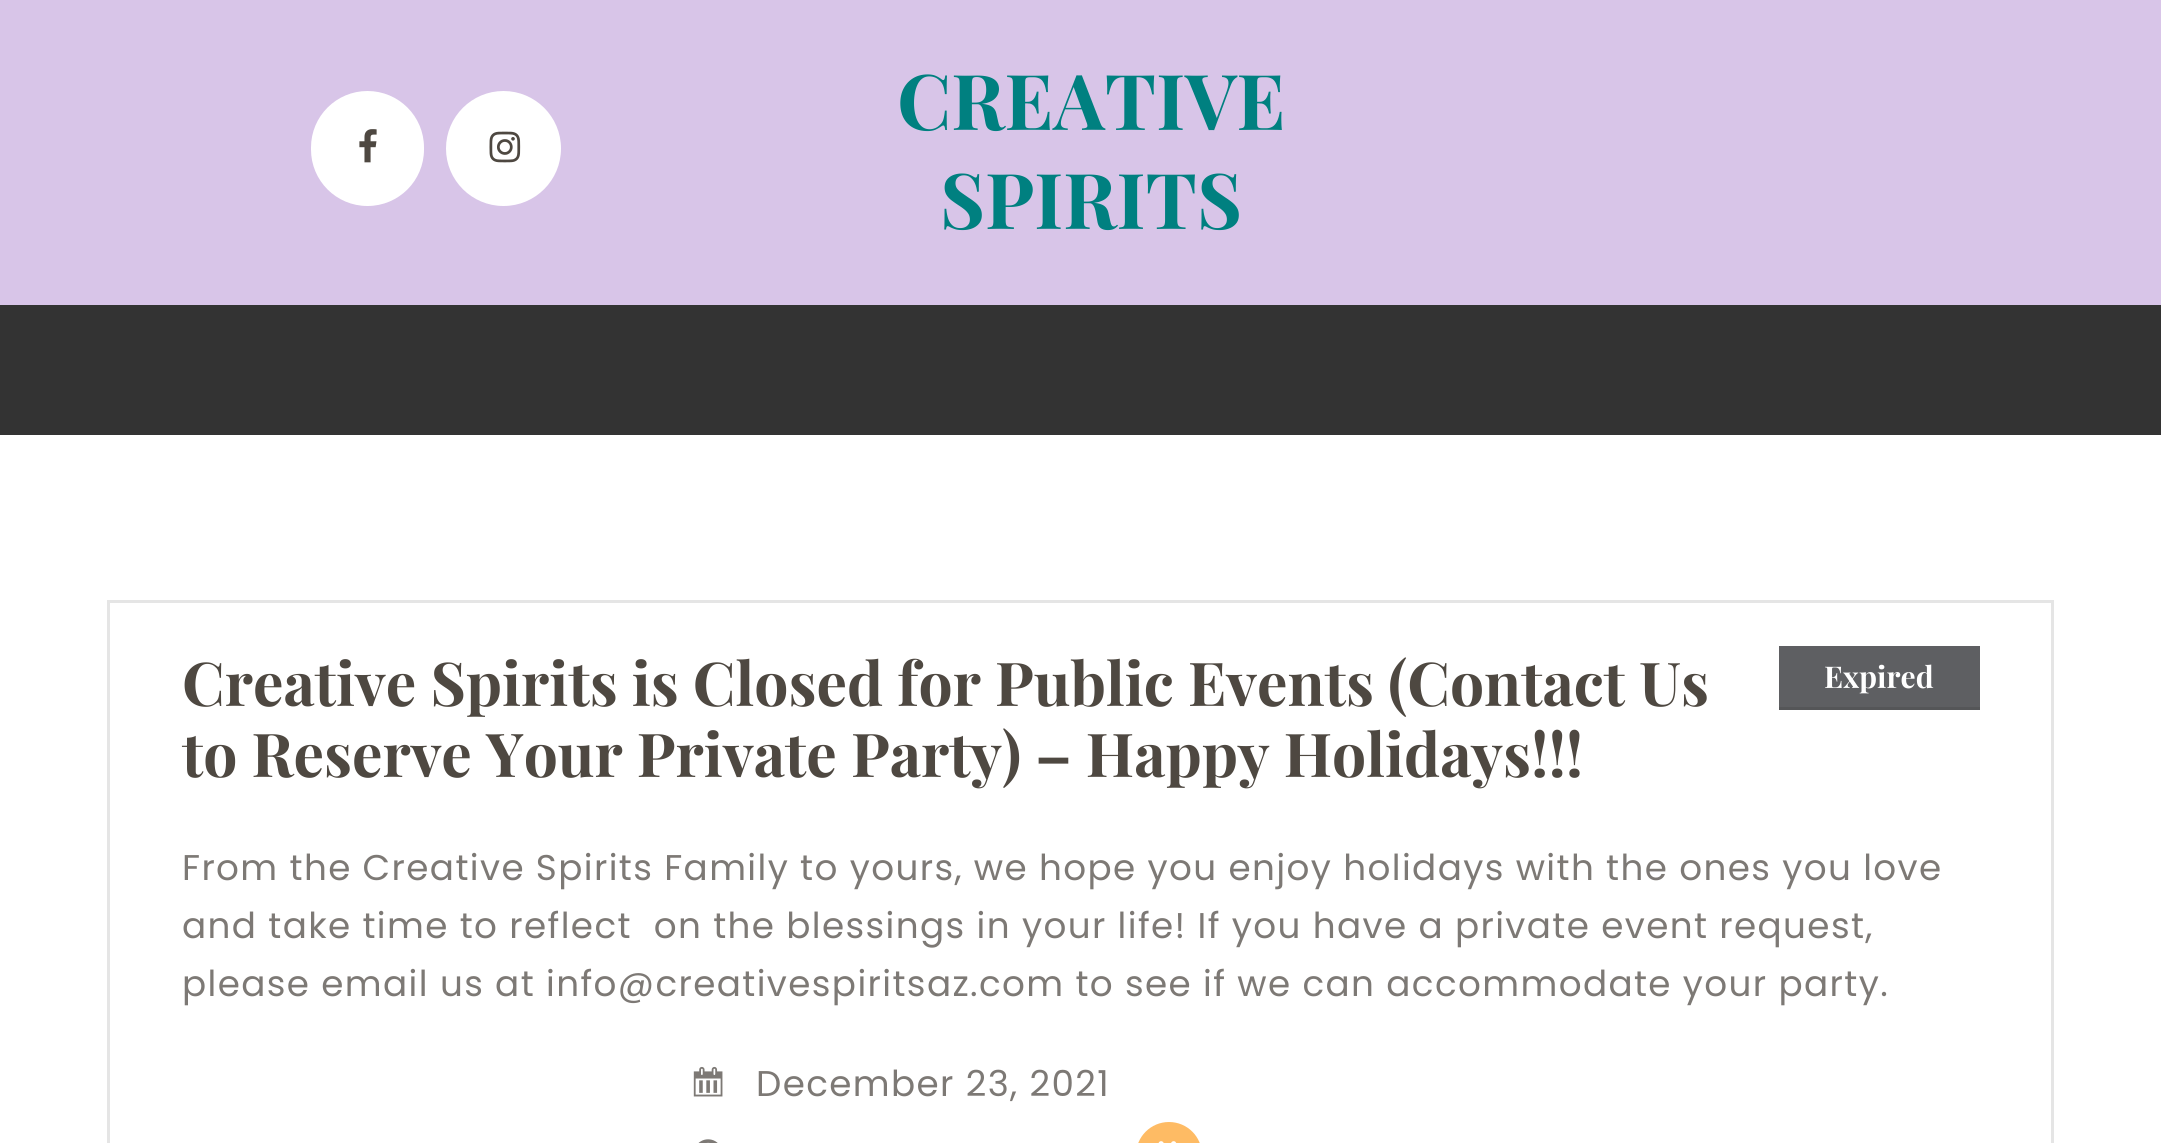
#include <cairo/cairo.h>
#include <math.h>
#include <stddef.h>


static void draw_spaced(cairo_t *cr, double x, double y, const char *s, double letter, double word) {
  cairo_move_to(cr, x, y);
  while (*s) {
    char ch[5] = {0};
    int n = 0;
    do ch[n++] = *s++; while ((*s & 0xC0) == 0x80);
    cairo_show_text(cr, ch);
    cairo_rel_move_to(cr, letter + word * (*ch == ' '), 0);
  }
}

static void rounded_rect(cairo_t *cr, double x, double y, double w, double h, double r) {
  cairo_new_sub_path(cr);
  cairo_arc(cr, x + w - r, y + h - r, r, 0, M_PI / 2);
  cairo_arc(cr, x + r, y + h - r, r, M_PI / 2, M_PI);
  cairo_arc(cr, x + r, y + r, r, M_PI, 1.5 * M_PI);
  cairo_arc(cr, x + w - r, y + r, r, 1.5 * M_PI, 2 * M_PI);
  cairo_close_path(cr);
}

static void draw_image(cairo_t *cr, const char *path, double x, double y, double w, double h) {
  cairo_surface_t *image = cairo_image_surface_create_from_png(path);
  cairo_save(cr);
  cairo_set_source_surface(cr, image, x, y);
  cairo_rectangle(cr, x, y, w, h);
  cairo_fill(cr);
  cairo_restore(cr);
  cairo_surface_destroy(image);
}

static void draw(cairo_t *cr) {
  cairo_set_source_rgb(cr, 1, 1, 1);
  cairo_paint(cr);
  cairo_set_source_rgb(cr, 216 / 255.0, 197 / 255.0, 232 / 255.0);
  cairo_rectangle(cr, 0, 0, 2161, 305);
  cairo_fill(cr);
  cairo_set_source_rgb(cr, 1, 1, 1);
  rounded_rect(cr, 311, 91, 113, 115, 56.5);
  cairo_fill(cr);
  draw_image(cr, "images/1.png", 359, 129, 18, 34);
  cairo_arc(cr, 503.5, 148.5, 57.5, 0, 2 * M_PI);
  cairo_fill(cr);
  draw_image(cr, "images/2.png", 489, 131, 32, 32);
  cairo_set_source_rgb(cr, 51 / 255.0, 51 / 255.0, 51 / 255.0);
  cairo_rectangle(cr, 0, 305, 2161, 130);
  cairo_fill(cr);
  cairo_rectangle(cr, 108.5, 601.5, 1944, 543);
  cairo_set_source_rgb(cr, 229 / 255.0, 229 / 255.0, 229 / 255.0);
  cairo_set_line_width(cr, 3);
  cairo_stroke(cr);
  cairo_set_source_rgb(cr, 94 / 255.0, 95 / 255.0, 98 / 255.0);
  cairo_rectangle(cr, 1779, 646, 201, 61);
  cairo_fill(cr);
  cairo_set_source_rgb(cr, 85 / 255.0, 86 / 255.0, 88 / 255.0);
  cairo_rectangle(cr, 1779, 707, 201, 3);
  cairo_fill(cr);
  draw_image(cr, "images/3.png", 693, 1066, 30, 31);
  draw_image(cr, "images/4.png", 698, 1139, 20, 4);
  cairo_set_source_rgb(cr, 254 / 255.0, 187 / 255.0, 100 / 255.0);
  rounded_rect(cr, 1136, 1122, 66, 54, 33);
  cairo_fill(cr);
  draw_image(cr, "images/5.png", 1158, 1141, 19, 2);
  cairo_select_font_face(cr, "Playfair Display", CAIRO_FONT_SLANT_NORMAL, CAIRO_FONT_WEIGHT_BOLD);
  cairo_set_font_size(cr, 77);
  cairo_set_source_rgb(cr, 0, 128 / 255.0, 128 / 255.0);
  cairo_move_to(cr, 897, 130);
  cairo_show_text(cr, "CREATIVE");
  cairo_move_to(cr, 940, 229);
  cairo_show_text(cr, "SPIRITS");
  cairo_set_font_size(cr, 60.5);
  cairo_set_source_rgb(cr, 78 / 255.0, 72 / 255.0, 65 / 255.0);
  cairo_move_to(cr, 182, 706);
  cairo_show_text(cr, "Creative Spirits is Closed for Public Events (Contact Us");
  cairo_set_font_size(cr, 30);
  cairo_set_source_rgb(cr, 1, 1, 1);
  cairo_move_to(cr, 1824, 688);
  cairo_show_text(cr, "Expired");
  cairo_set_font_size(cr, 60.5);
  cairo_set_source_rgb(cr, 78 / 255.0, 72 / 255.0, 65 / 255.0);
  cairo_move_to(cr, 182, 777);
  cairo_show_text(cr, "to Reserve Your Private Party) – Happy Holidays!!!");
  cairo_select_font_face(cr, "Poppins", CAIRO_FONT_SLANT_NORMAL, CAIRO_FONT_WEIGHT_NORMAL);
  cairo_set_font_size(cr, 35.75);
  cairo_set_source_rgb(cr, 125 / 255.0, 121 / 255.0, 117 / 255.0);
  draw_spaced(cr, 182, 880, "From the Creative Spirits Family to yours, we hope you enjoy holidays with the ones you love", 1.38, 0);
  draw_spaced(cr, 182, 938, "and take time to reflect  on the blessings in your life! If you have a private event request,", 1.38, 0);
  draw_spaced(cr, 182, 996, "please email us at info@creativespiritsaz.com to see if we can accommodate your party.", 1.38, 0);
  draw_spaced(cr, 756, 1096, "December 23, 2021", 1.38, 0);
}

int main(void) {
  cairo_surface_t *surface = cairo_image_surface_create(CAIRO_FORMAT_RGB24, 2161, 1143);
  cairo_t *cr = cairo_create(surface);
  cairo_font_options_t *options = cairo_font_options_create();
  cairo_font_options_set_hint_metrics(options, CAIRO_HINT_METRICS_OFF);
  cairo_font_options_set_hint_style(options, CAIRO_HINT_STYLE_NONE);
  cairo_set_font_options(cr, options);
  cairo_set_miter_limit(cr, 4);
  draw(cr);
  cairo_surface_write_to_png(surface, "out.png");
  cairo_font_options_destroy(options);
  cairo_destroy(cr);
  cairo_surface_destroy(surface);
  return 0;
}
